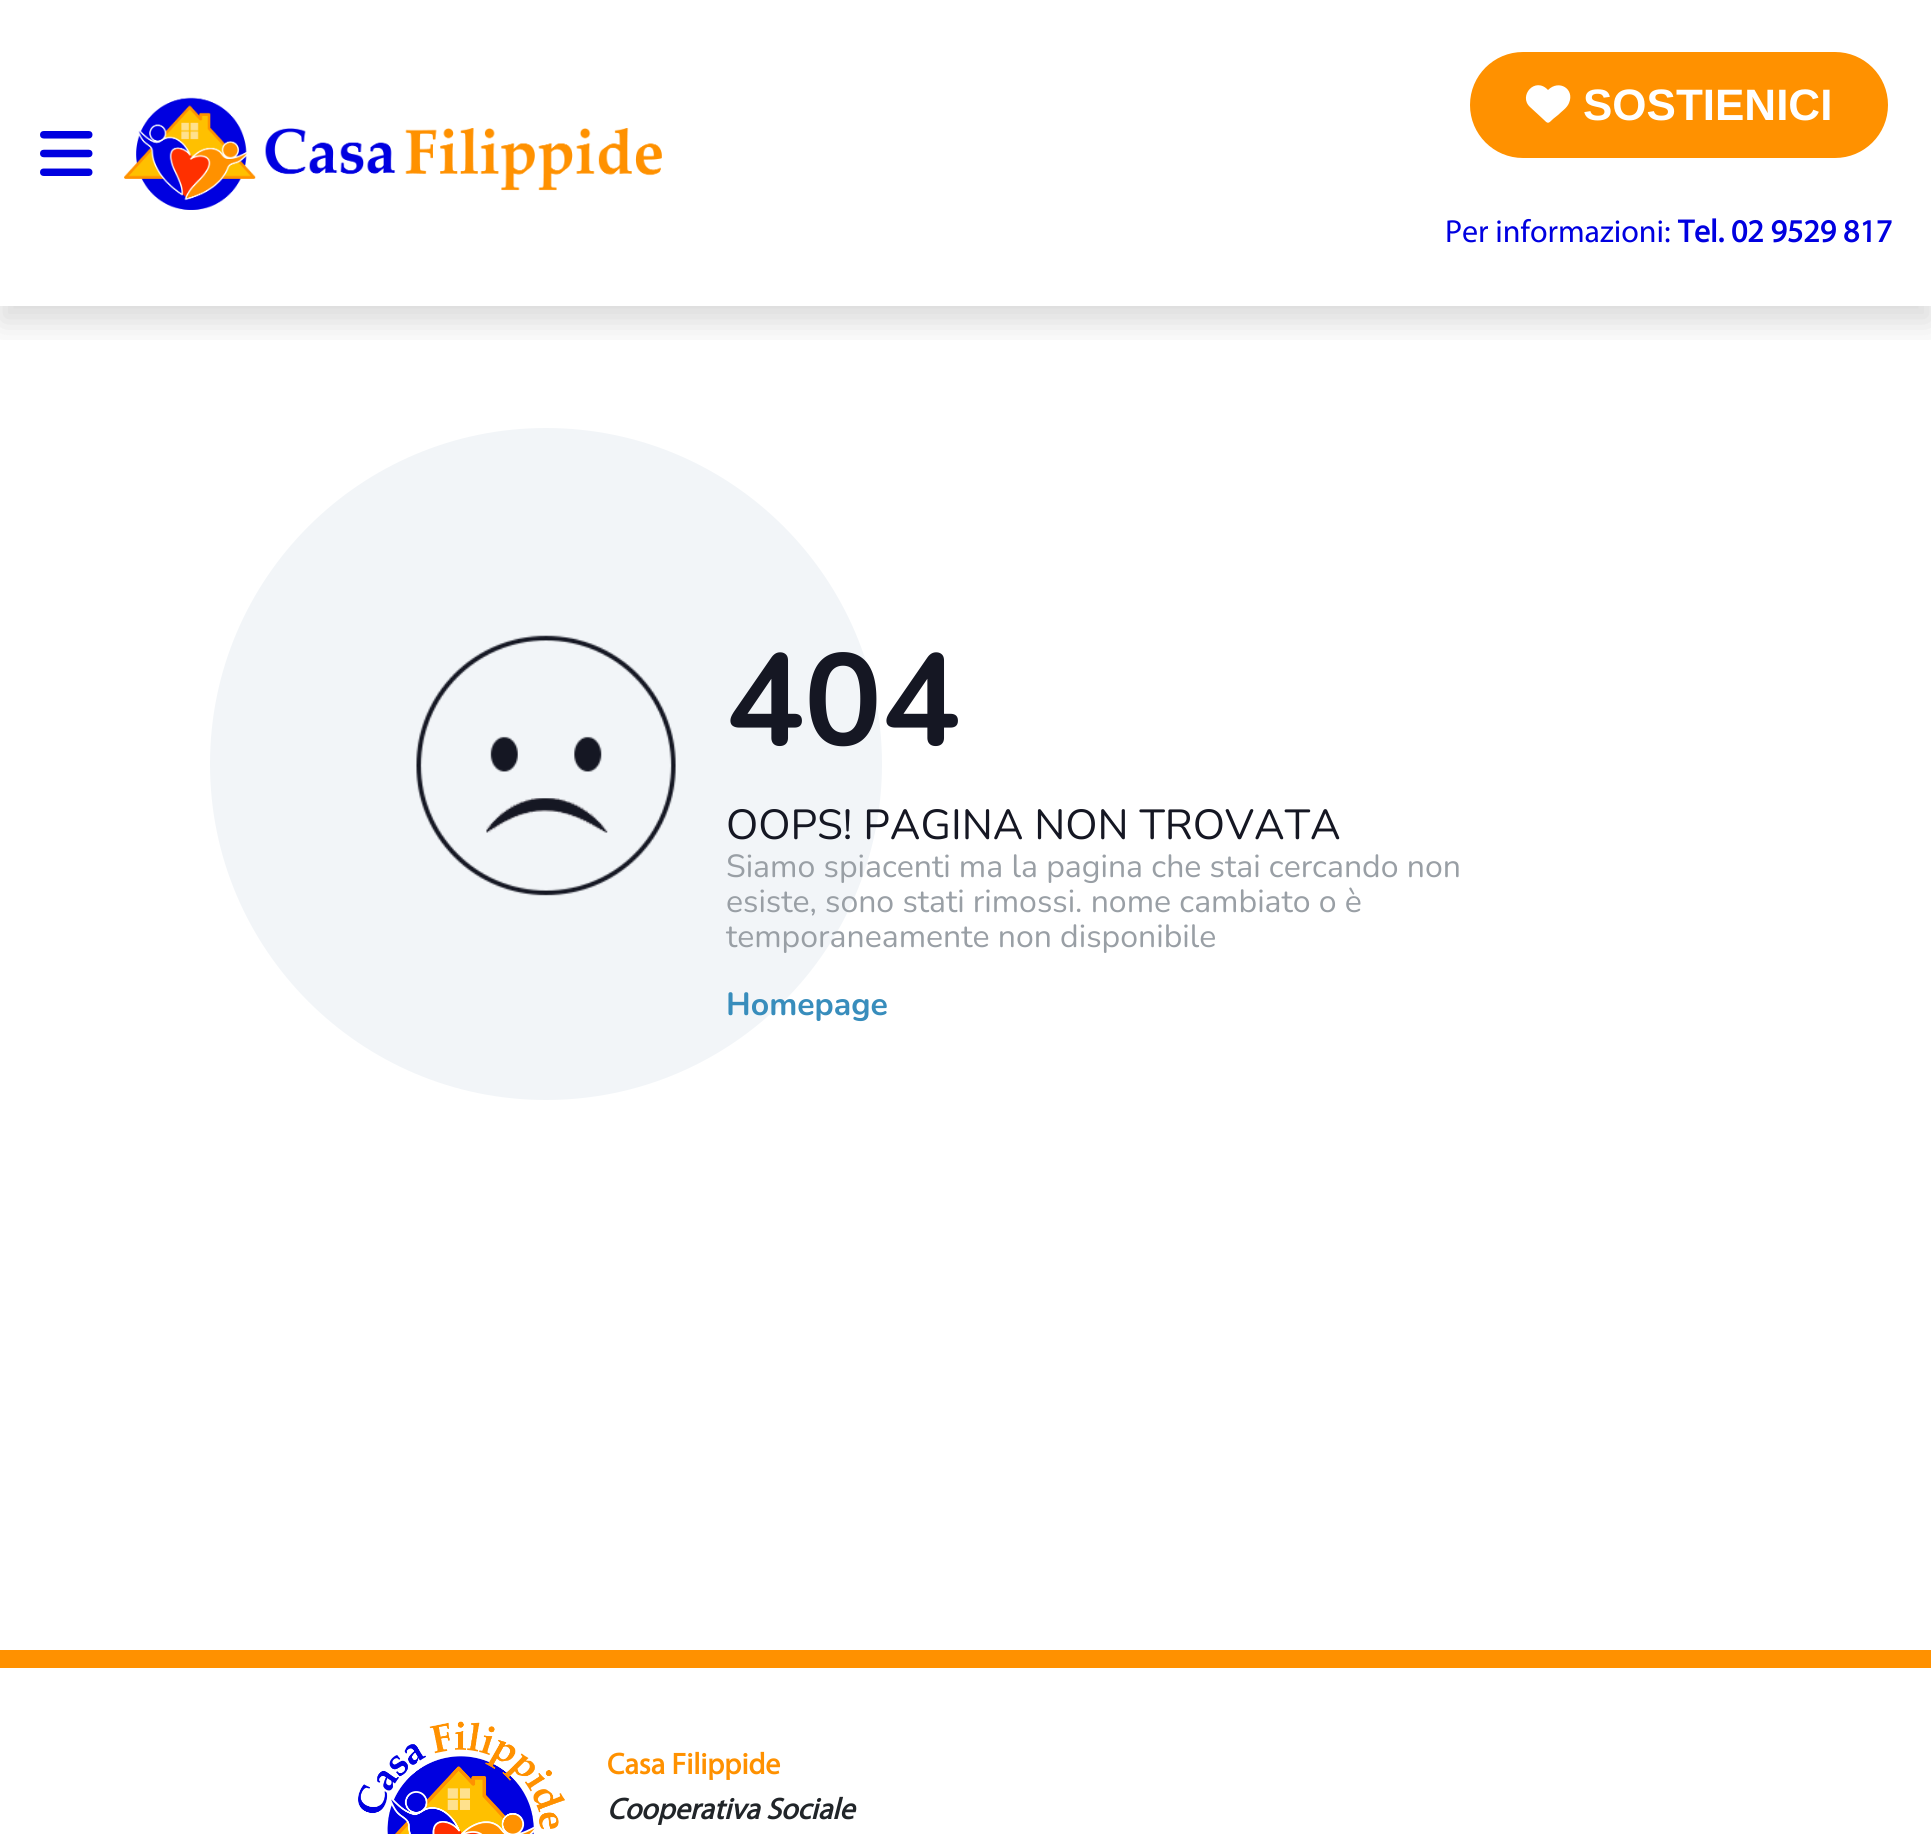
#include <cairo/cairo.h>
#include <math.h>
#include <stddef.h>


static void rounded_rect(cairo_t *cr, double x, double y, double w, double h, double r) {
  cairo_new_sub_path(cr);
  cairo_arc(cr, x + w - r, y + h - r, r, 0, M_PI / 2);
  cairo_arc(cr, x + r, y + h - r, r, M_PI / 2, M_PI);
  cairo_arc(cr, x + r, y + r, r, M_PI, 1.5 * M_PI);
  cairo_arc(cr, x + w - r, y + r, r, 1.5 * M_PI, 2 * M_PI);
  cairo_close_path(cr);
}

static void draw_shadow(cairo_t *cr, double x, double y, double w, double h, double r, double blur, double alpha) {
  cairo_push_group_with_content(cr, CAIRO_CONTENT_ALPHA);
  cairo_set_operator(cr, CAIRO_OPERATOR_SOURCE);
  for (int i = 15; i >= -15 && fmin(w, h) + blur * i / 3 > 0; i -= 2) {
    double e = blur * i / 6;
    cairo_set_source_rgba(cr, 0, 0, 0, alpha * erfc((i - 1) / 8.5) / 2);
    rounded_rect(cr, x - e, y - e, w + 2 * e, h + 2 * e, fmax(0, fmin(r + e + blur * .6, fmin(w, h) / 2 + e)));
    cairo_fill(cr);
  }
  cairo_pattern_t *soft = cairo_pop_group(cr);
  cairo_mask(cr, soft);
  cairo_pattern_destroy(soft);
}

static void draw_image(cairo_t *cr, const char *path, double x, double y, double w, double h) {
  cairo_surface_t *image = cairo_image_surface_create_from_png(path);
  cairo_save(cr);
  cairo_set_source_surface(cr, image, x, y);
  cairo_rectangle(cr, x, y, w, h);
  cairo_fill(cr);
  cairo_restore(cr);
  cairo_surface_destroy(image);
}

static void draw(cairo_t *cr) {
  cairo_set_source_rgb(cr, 1, 1, 1);
  cairo_paint(cr);
  cairo_save(cr);
  cairo_rectangle(cr, 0, 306, 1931, 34);
  cairo_clip(cr);
  cairo_set_source_rgb(cr, 0, 0, 0);
  draw_shadow(cr, 0, 16, 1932, 306, 0, 16, 0.15);
  cairo_restore(cr);
  draw_image(cr, "images/1.png", 40, 131, 53, 45);
  draw_image(cr, "images/2.png", 124, 97, 538, 113);
  cairo_set_source_rgb(cr, 1, 145 / 255.0, 0);
  rounded_rect(cr, 1468, 50, 422, 110, 55);
  cairo_fill_preserve(cr);
  cairo_set_source_rgb(cr, 1, 1, 1);
  cairo_set_line_width(cr, 4);
  cairo_stroke(cr);
  cairo_new_path(cr);
  cairo_move_to(cr, 1530, 107);
  cairo_line_to(cr, 1546, 122);
  cairo_line_to(cr, 1530, 107);
  cairo_line_to(cr, 1543, 119);
  cairo_curve_to(cr, 1548, 124, 1548, 124, 1553, 119);
  cairo_line_to(cr, 1558, 115);
  cairo_curve_to(cr, 1562, 111, 1567, 108, 1569, 103);
  cairo_curve_to(cr, 1575, 89, 1559, 79, 1548, 90);
  cairo_curve_to(cr, 1535, 76, 1518, 96, 1530, 107);
  cairo_close_path(cr);
  cairo_fill(cr);
  cairo_set_source_rgb(cr, 242 / 255.0, 245 / 255.0, 248 / 255.0);
  cairo_arc(cr, 546, 764, 336, 0, 2 * M_PI);
  cairo_fill(cr);
  draw_image(cr, "images/3.png", 416, 635, 260, 261);
  cairo_set_source_rgb(cr, 1, 145 / 255.0, 0);
  cairo_rectangle(cr, 0, 1650, 1931, 18);
  cairo_fill(cr);
  draw_image(cr, "images/4.png", 358, 1721, 207, 113);
  cairo_select_font_face(cr, "Liberation Sans", CAIRO_FONT_SLANT_NORMAL, CAIRO_FONT_WEIGHT_BOLD);
  cairo_set_font_size(cr, 44);
  cairo_set_source_rgb(cr, 1, 1, 1);
  cairo_move_to(cr, 1583, 120);
  cairo_show_text(cr, "SOSTIENICI");
  cairo_select_font_face(cr, "Myriad", CAIRO_FONT_SLANT_NORMAL, CAIRO_FONT_WEIGHT_NORMAL);
  cairo_set_font_size(cr, 32);
  cairo_set_source_rgb(cr, 0, 0, 224 / 255.0);
  cairo_move_to(cr, 1445, 242);
  cairo_show_text(cr, "Per informazioni:");
  cairo_select_font_face(cr, "Myriad", CAIRO_FONT_SLANT_NORMAL, CAIRO_FONT_WEIGHT_BOLD);
  cairo_move_to(cr, 1678, 242);
  cairo_show_text(cr, "Tel. 02 9529 817");
  cairo_select_font_face(cr, "Nunito", CAIRO_FONT_SLANT_NORMAL, CAIRO_FONT_WEIGHT_BOLD);
  cairo_set_font_size(cr, 130);
  cairo_set_source_rgb(cr, 21 / 255.0, 23 / 255.0, 35 / 255.0);
  cairo_move_to(cr, 726, 745);
  cairo_show_text(cr, "404");
  cairo_select_font_face(cr, "Nunito", CAIRO_FONT_SLANT_NORMAL, CAIRO_FONT_WEIGHT_NORMAL);
  cairo_set_font_size(cr, 42);
  cairo_move_to(cr, 726, 839);
  cairo_show_text(cr, "OOPS! PAGINA NON TROVATA");
  cairo_set_font_size(cr, 32);
  cairo_set_source_rgb(cr, 153 / 255.0, 159 / 255.0, 165 / 255.0);
  cairo_move_to(cr, 726, 877);
  cairo_show_text(cr, "Siamo spiacenti ma la pagina che stai cercando non");
  cairo_move_to(cr, 726, 912);
  cairo_show_text(cr, "esiste, sono stati rimossi. nome cambiato o è");
  cairo_move_to(cr, 726, 947);
  cairo_show_text(cr, "temporaneamente non disponibile");
  cairo_select_font_face(cr, "Nunito", CAIRO_FONT_SLANT_NORMAL, CAIRO_FONT_WEIGHT_BOLD);
  cairo_set_source_rgb(cr, 56 / 255.0, 141 / 255.0, 188 / 255.0);
  cairo_move_to(cr, 726, 1015);
  cairo_show_text(cr, "Homepage");
  cairo_select_font_face(cr, "Myriad", CAIRO_FONT_SLANT_NORMAL, CAIRO_FONT_WEIGHT_BOLD);
  cairo_set_font_size(cr, 30);
  cairo_set_source_rgb(cr, 1, 145 / 255.0, 0);
  cairo_move_to(cr, 607, 1774);
  cairo_show_text(cr, "Casa Filippide");
  cairo_select_font_face(cr, "Myriad", CAIRO_FONT_SLANT_ITALIC, CAIRO_FONT_WEIGHT_BOLD);
  cairo_set_source_rgb(cr, 33 / 255.0, 37 / 255.0, 41 / 255.0);
  cairo_move_to(cr, 607, 1819);
  cairo_show_text(cr, "Cooperativa Sociale");
}

int main(void) {
  cairo_surface_t *surface = cairo_image_surface_create(CAIRO_FORMAT_RGB24, 1931, 1834);
  cairo_t *cr = cairo_create(surface);
  cairo_font_options_t *options = cairo_font_options_create();
  cairo_font_options_set_hint_metrics(options, CAIRO_HINT_METRICS_OFF);
  cairo_font_options_set_hint_style(options, CAIRO_HINT_STYLE_NONE);
  cairo_set_font_options(cr, options);
  cairo_set_miter_limit(cr, 4);
  draw(cr);
  cairo_surface_write_to_png(surface, "out.png");
  cairo_font_options_destroy(options);
  cairo_destroy(cr);
  cairo_surface_destroy(surface);
  return 0;
}
